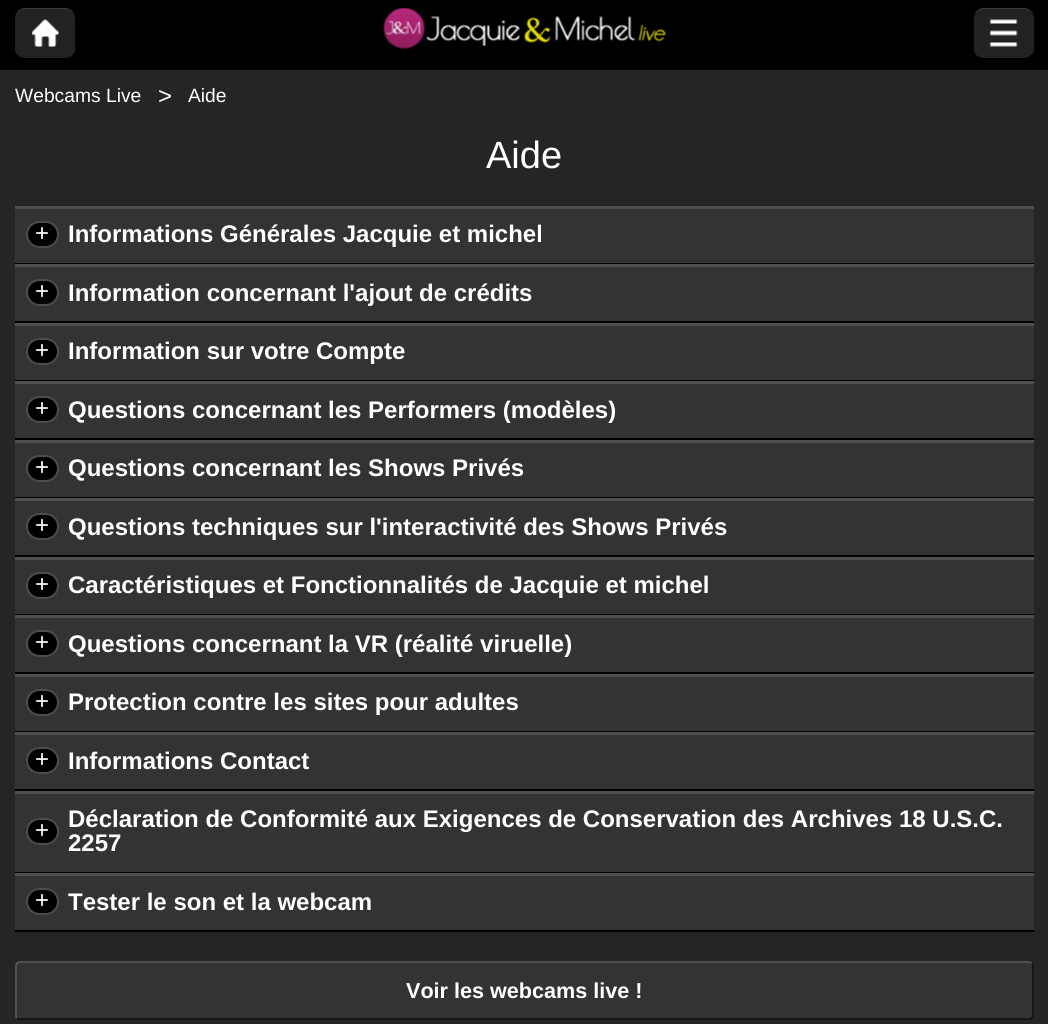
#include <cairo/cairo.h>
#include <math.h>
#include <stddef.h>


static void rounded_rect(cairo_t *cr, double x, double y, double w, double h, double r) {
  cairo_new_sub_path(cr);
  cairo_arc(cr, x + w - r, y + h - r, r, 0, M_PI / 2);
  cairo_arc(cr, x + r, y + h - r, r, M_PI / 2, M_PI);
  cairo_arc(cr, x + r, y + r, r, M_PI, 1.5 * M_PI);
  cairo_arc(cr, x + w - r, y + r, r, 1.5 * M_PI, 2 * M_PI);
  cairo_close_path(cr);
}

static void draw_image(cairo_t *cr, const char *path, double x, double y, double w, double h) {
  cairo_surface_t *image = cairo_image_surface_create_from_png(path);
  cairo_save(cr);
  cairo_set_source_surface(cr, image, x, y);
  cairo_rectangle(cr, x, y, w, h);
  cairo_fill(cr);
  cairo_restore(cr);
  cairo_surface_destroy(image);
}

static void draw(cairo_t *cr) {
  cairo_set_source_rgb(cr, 37 / 255.0, 37 / 255.0, 37 / 255.0);
  cairo_paint(cr);
  cairo_set_source_rgb(cr, 0, 0, 0);
  cairo_rectangle(cr, 0, 0, 1048, 70);
  cairo_fill(cr);
  cairo_set_source_rgb(cr, 34 / 255.0, 34 / 255.0, 34 / 255.0);
  rounded_rect(cr, 15, 8, 60, 52, 11);
  cairo_fill(cr);
  cairo_set_source_rgb(cr, 60 / 255.0, 60 / 255.0, 60 / 255.0);
  cairo_new_path(cr);
  cairo_move_to(cr, 26, 8);
  cairo_curve_to(cr, 20, 8, 15, 12, 15, 18);
  cairo_curve_to(cr, 15, 13, 20, 9, 26, 9);
  cairo_line_to(cr, 64, 9);
  cairo_curve_to(cr, 70, 9, 75, 13, 75, 18);
  cairo_curve_to(cr, 75, 12, 70, 8, 64, 8);
  cairo_close_path(cr);
  cairo_fill(cr);
  cairo_set_source_rgb(cr, 0, 0, 0);
  cairo_new_path(cr);
  cairo_move_to(cr, 64, 60);
  cairo_curve_to(cr, 70, 60, 75, 55, 75, 50);
  cairo_curve_to(cr, 75, 54, 70, 58, 64, 58);
  cairo_line_to(cr, 26, 58);
  cairo_curve_to(cr, 20, 58, 15, 54, 15, 50);
  cairo_curve_to(cr, 15, 55, 20, 60, 26, 60);
  cairo_close_path(cr);
  cairo_fill(cr);
  draw_image(cr, "images/1.png", 32, 19, 27, 28);
  draw_image(cr, "images/2.png", 382, 8, 284, 42);
  cairo_set_source_rgb(cr, 34 / 255.0, 34 / 255.0, 34 / 255.0);
  rounded_rect(cr, 974, 8, 60, 52, 11);
  cairo_fill(cr);
  cairo_set_source_rgb(cr, 60 / 255.0, 60 / 255.0, 60 / 255.0);
  cairo_new_path(cr);
  cairo_move_to(cr, 984, 8);
  cairo_line_to(cr, 1023, 8);
  cairo_curve_to(cr, 1028, 8, 1032, 11, 1034, 15);
  cairo_curve_to(cr, 1032, 12, 1028, 9, 1023, 9);
  cairo_line_to(cr, 984, 9);
  cairo_curve_to(cr, 978, 9, 974, 13, 974, 18);
  cairo_curve_to(cr, 974, 12, 978, 8, 984, 8);
  cairo_close_path(cr);
  cairo_fill(cr);
  cairo_set_source_rgb(cr, 0, 0, 0);
  cairo_new_path(cr);
  cairo_move_to(cr, 984, 60);
  cairo_line_to(cr, 1023, 60);
  cairo_curve_to(cr, 1028, 60, 1032, 57, 1034, 53);
  cairo_line_to(cr, 1034, 52);
  cairo_curve_to(cr, 1032, 55, 1028, 58, 1023, 58);
  cairo_line_to(cr, 984, 58);
  cairo_curve_to(cr, 978, 58, 974, 54, 974, 50);
  cairo_curve_to(cr, 974, 55, 978, 60, 984, 60);
  cairo_close_path(cr);
  cairo_fill(cr);
  draw_image(cr, "images/3.png", 989, 19, 29, 28);
  cairo_set_source_rgb(cr, 51 / 255.0, 51 / 255.0, 51 / 255.0);
  cairo_rectangle(cr, 15, 209, 1019, 54);
  cairo_fill(cr);
  cairo_set_source_rgb(cr, 79 / 255.0, 79 / 255.0, 79 / 255.0);
  cairo_rectangle(cr, 15, 206, 1019, 3);
  cairo_fill(cr);
  cairo_set_source_rgb(cr, 0, 0, 0);
  cairo_rectangle(cr, 15, 263, 1019, 1);
  cairo_fill(cr);
  rounded_rect(cr, 27, 222, 31, 25, 12.5);
  cairo_fill_preserve(cr);
  cairo_set_source_rgb(cr, 76 / 255.0, 76 / 255.0, 76 / 255.0);
  cairo_stroke(cr);
  cairo_set_source_rgb(cr, 51 / 255.0, 51 / 255.0, 51 / 255.0);
  cairo_rectangle(cr, 15, 267, 1019, 54);
  cairo_fill(cr);
  cairo_set_source_rgb(cr, 79 / 255.0, 79 / 255.0, 79 / 255.0);
  cairo_rectangle(cr, 15, 264, 1019, 3);
  cairo_fill(cr);
  cairo_set_source_rgb(cr, 0, 0, 0);
  cairo_rectangle(cr, 15, 321, 1019, 2);
  cairo_fill(cr);
  rounded_rect(cr, 27, 280, 31, 25, 12.5);
  cairo_fill_preserve(cr);
  cairo_set_source_rgb(cr, 76 / 255.0, 76 / 255.0, 76 / 255.0);
  cairo_stroke(cr);
  cairo_set_source_rgb(cr, 51 / 255.0, 51 / 255.0, 51 / 255.0);
  cairo_rectangle(cr, 15, 326, 1019, 54);
  cairo_fill(cr);
  cairo_set_source_rgb(cr, 79 / 255.0, 79 / 255.0, 79 / 255.0);
  cairo_rectangle(cr, 15, 323, 1019, 3);
  cairo_fill(cr);
  cairo_set_source_rgb(cr, 0, 0, 0);
  cairo_rectangle(cr, 15, 380, 1019, 1);
  cairo_fill(cr);
  rounded_rect(cr, 27, 339, 31, 25, 12.5);
  cairo_fill_preserve(cr);
  cairo_set_source_rgb(cr, 76 / 255.0, 76 / 255.0, 76 / 255.0);
  cairo_stroke(cr);
  cairo_set_source_rgb(cr, 51 / 255.0, 51 / 255.0, 51 / 255.0);
  cairo_rectangle(cr, 15, 384, 1019, 54);
  cairo_fill(cr);
  cairo_set_source_rgb(cr, 79 / 255.0, 79 / 255.0, 79 / 255.0);
  cairo_rectangle(cr, 15, 381, 1019, 3);
  cairo_fill(cr);
  cairo_set_source_rgb(cr, 0, 0, 0);
  cairo_rectangle(cr, 15, 438, 1019, 2);
  cairo_fill(cr);
  rounded_rect(cr, 27, 397, 31, 25, 12.5);
  cairo_fill_preserve(cr);
  cairo_set_source_rgb(cr, 76 / 255.0, 76 / 255.0, 76 / 255.0);
  cairo_stroke(cr);
  cairo_set_source_rgb(cr, 51 / 255.0, 51 / 255.0, 51 / 255.0);
  cairo_rectangle(cr, 15, 443, 1019, 54);
  cairo_fill(cr);
  cairo_set_source_rgb(cr, 79 / 255.0, 79 / 255.0, 79 / 255.0);
  cairo_rectangle(cr, 15, 440, 1019, 3);
  cairo_fill(cr);
  cairo_set_source_rgb(cr, 0, 0, 0);
  cairo_rectangle(cr, 15, 497, 1019, 1);
  cairo_fill(cr);
  rounded_rect(cr, 27, 456, 31, 25, 12.5);
  cairo_fill_preserve(cr);
  cairo_set_source_rgb(cr, 76 / 255.0, 76 / 255.0, 76 / 255.0);
  cairo_stroke(cr);
  cairo_set_source_rgb(cr, 51 / 255.0, 51 / 255.0, 51 / 255.0);
  cairo_rectangle(cr, 15, 501, 1019, 54);
  cairo_fill(cr);
  cairo_set_source_rgb(cr, 79 / 255.0, 79 / 255.0, 79 / 255.0);
  cairo_rectangle(cr, 15, 498, 1019, 3);
  cairo_fill(cr);
  cairo_set_source_rgb(cr, 0, 0, 0);
  cairo_rectangle(cr, 15, 555, 1019, 2);
  cairo_fill(cr);
  rounded_rect(cr, 27, 514, 31, 25, 12.5);
  cairo_fill_preserve(cr);
  cairo_set_source_rgb(cr, 76 / 255.0, 76 / 255.0, 76 / 255.0);
  cairo_stroke(cr);
  cairo_set_source_rgb(cr, 51 / 255.0, 51 / 255.0, 51 / 255.0);
  cairo_rectangle(cr, 15, 560, 1019, 54);
  cairo_fill(cr);
  cairo_set_source_rgb(cr, 79 / 255.0, 79 / 255.0, 79 / 255.0);
  cairo_rectangle(cr, 15, 557, 1019, 3);
  cairo_fill(cr);
  cairo_set_source_rgb(cr, 0, 0, 0);
  cairo_rectangle(cr, 15, 614, 1019, 1);
  cairo_fill(cr);
  rounded_rect(cr, 27, 573, 31, 25, 12.5);
  cairo_fill_preserve(cr);
  cairo_set_source_rgb(cr, 76 / 255.0, 76 / 255.0, 76 / 255.0);
  cairo_stroke(cr);
  cairo_set_source_rgb(cr, 51 / 255.0, 51 / 255.0, 51 / 255.0);
  cairo_rectangle(cr, 15, 618, 1019, 54);
  cairo_fill(cr);
  cairo_set_source_rgb(cr, 79 / 255.0, 79 / 255.0, 79 / 255.0);
  cairo_rectangle(cr, 15, 615, 1019, 3);
  cairo_fill(cr);
  cairo_set_source_rgb(cr, 0, 0, 0);
  cairo_rectangle(cr, 15, 672, 1019, 2);
  cairo_fill(cr);
  rounded_rect(cr, 27, 631, 31, 25, 12.5);
  cairo_fill_preserve(cr);
  cairo_set_source_rgb(cr, 76 / 255.0, 76 / 255.0, 76 / 255.0);
  cairo_stroke(cr);
  cairo_set_source_rgb(cr, 51 / 255.0, 51 / 255.0, 51 / 255.0);
  cairo_rectangle(cr, 15, 677, 1019, 54);
  cairo_fill(cr);
  cairo_set_source_rgb(cr, 79 / 255.0, 79 / 255.0, 79 / 255.0);
  cairo_rectangle(cr, 15, 674, 1019, 3);
  cairo_fill(cr);
  cairo_set_source_rgb(cr, 0, 0, 0);
  cairo_rectangle(cr, 15, 731, 1019, 1);
  cairo_fill(cr);
  rounded_rect(cr, 27, 690, 31, 25, 12.5);
  cairo_fill_preserve(cr);
  cairo_set_source_rgb(cr, 76 / 255.0, 76 / 255.0, 76 / 255.0);
  cairo_stroke(cr);
  cairo_set_source_rgb(cr, 51 / 255.0, 51 / 255.0, 51 / 255.0);
  cairo_rectangle(cr, 15, 735, 1019, 54);
  cairo_fill(cr);
  cairo_set_source_rgb(cr, 79 / 255.0, 79 / 255.0, 79 / 255.0);
  cairo_rectangle(cr, 15, 732, 1019, 3);
  cairo_fill(cr);
  cairo_set_source_rgb(cr, 0, 0, 0);
  cairo_rectangle(cr, 15, 789, 1019, 2);
  cairo_fill(cr);
  rounded_rect(cr, 27, 748, 31, 25, 12.5);
  cairo_fill_preserve(cr);
  cairo_set_source_rgb(cr, 76 / 255.0, 76 / 255.0, 76 / 255.0);
  cairo_stroke(cr);
  cairo_set_source_rgb(cr, 51 / 255.0, 51 / 255.0, 51 / 255.0);
  cairo_rectangle(cr, 15, 794, 1019, 78);
  cairo_fill(cr);
  cairo_set_source_rgb(cr, 79 / 255.0, 79 / 255.0, 79 / 255.0);
  cairo_rectangle(cr, 15, 791, 1019, 3);
  cairo_fill(cr);
  cairo_set_source_rgb(cr, 0, 0, 0);
  cairo_rectangle(cr, 15, 872, 1019, 1);
  cairo_fill(cr);
  rounded_rect(cr, 27, 819, 31, 25, 12.5);
  cairo_fill_preserve(cr);
  cairo_set_source_rgb(cr, 76 / 255.0, 76 / 255.0, 76 / 255.0);
  cairo_stroke(cr);
  cairo_set_source_rgb(cr, 51 / 255.0, 51 / 255.0, 51 / 255.0);
  cairo_rectangle(cr, 15, 876, 1019, 54);
  cairo_fill(cr);
  cairo_set_source_rgb(cr, 79 / 255.0, 79 / 255.0, 79 / 255.0);
  cairo_rectangle(cr, 15, 873, 1019, 3);
  cairo_fill(cr);
  cairo_set_source_rgb(cr, 0, 0, 0);
  cairo_rectangle(cr, 15, 930, 1019, 2);
  cairo_fill(cr);
  rounded_rect(cr, 27, 889, 31, 25, 12.5);
  cairo_fill_preserve(cr);
  cairo_set_source_rgb(cr, 76 / 255.0, 76 / 255.0, 76 / 255.0);
  cairo_stroke(cr);
  cairo_set_source_rgb(cr, 51 / 255.0, 51 / 255.0, 51 / 255.0);
  rounded_rect(cr, 15, 962, 1019, 58, 5);
  cairo_fill(cr);
  cairo_new_path(cr);
  cairo_move_to(cr, 1031.5, 963.5);
  cairo_curve_to(cr, 1032.5, 964, 1033, 965, 1033, 966);
  cairo_line_to(cr, 1033, 1015.5);
  cairo_curve_to(cr, 1033, 1016.5, 1032.5, 1017.5, 1031.5, 1018);
  cairo_curve_to(cr, 1031, 1019, 1030, 1019, 1029, 1019);
  cairo_line_to(cr, 19.5, 1019);
  cairo_curve_to(cr, 18.5, 1019, 17.5, 1019, 17, 1018);
  cairo_set_source_rgb(cr, 13 / 255.0, 13 / 255.0, 13 / 255.0);
  cairo_set_line_width(cr, 1.5);
  cairo_stroke(cr);
  cairo_new_path(cr);
  cairo_move_to(cr, 17, 1018);
  cairo_curve_to(cr, 16, 1017.5, 16, 1016.5, 16, 1015.5);
  cairo_line_to(cr, 16, 966);
  cairo_curve_to(cr, 16, 965, 16, 964, 17, 963.5);
  cairo_curve_to(cr, 17.5, 962.5, 18.5, 962, 19.5, 962);
  cairo_line_to(cr, 1029, 962);
  cairo_curve_to(cr, 1030, 962, 1031, 962.5, 1031.5, 963.5);
  cairo_set_source_rgb(cr, 89 / 255.0, 89 / 255.0, 89 / 255.0);
  cairo_stroke(cr);
  cairo_select_font_face(cr, "Liberation Sans", CAIRO_FONT_SLANT_NORMAL, CAIRO_FONT_WEIGHT_NORMAL);
  cairo_set_font_size(cr, 19.25);
  cairo_set_source_rgb(cr, 1, 1, 1);
  cairo_move_to(cr, 15, 102);
  cairo_show_text(cr, "Webcams Live");
  cairo_set_font_size(cr, 24);
  cairo_move_to(cr, 158, 104);
  cairo_show_text(cr, ">");
  cairo_set_font_size(cr, 19.25);
  cairo_move_to(cr, 188, 102);
  cairo_show_text(cr, "Aide");
  cairo_set_font_size(cr, 38);
  cairo_move_to(cr, 486, 168);
  cairo_show_text(cr, "Aide");
  cairo_set_font_size(cr, 24);
  cairo_move_to(cr, 35, 241);
  cairo_show_text(cr, "+");
  cairo_select_font_face(cr, "Liberation Sans", CAIRO_FONT_SLANT_NORMAL, CAIRO_FONT_WEIGHT_BOLD);
  cairo_move_to(cr, 68, 242);
  cairo_show_text(cr, "Informations Générales Jacquie et michel");
  cairo_select_font_face(cr, "Liberation Sans", CAIRO_FONT_SLANT_NORMAL, CAIRO_FONT_WEIGHT_NORMAL);
  cairo_move_to(cr, 35, 299);
  cairo_show_text(cr, "+");
  cairo_select_font_face(cr, "Liberation Sans", CAIRO_FONT_SLANT_NORMAL, CAIRO_FONT_WEIGHT_BOLD);
  cairo_move_to(cr, 68, 301);
  cairo_show_text(cr, "Information concernant l'ajout de crédits");
  cairo_select_font_face(cr, "Liberation Sans", CAIRO_FONT_SLANT_NORMAL, CAIRO_FONT_WEIGHT_NORMAL);
  cairo_move_to(cr, 35, 358);
  cairo_show_text(cr, "+");
  cairo_select_font_face(cr, "Liberation Sans", CAIRO_FONT_SLANT_NORMAL, CAIRO_FONT_WEIGHT_BOLD);
  cairo_move_to(cr, 68, 359);
  cairo_show_text(cr, "Information sur votre Compte");
  cairo_select_font_face(cr, "Liberation Sans", CAIRO_FONT_SLANT_NORMAL, CAIRO_FONT_WEIGHT_NORMAL);
  cairo_move_to(cr, 35, 416);
  cairo_show_text(cr, "+");
  cairo_select_font_face(cr, "Liberation Sans", CAIRO_FONT_SLANT_NORMAL, CAIRO_FONT_WEIGHT_BOLD);
  cairo_move_to(cr, 68, 418);
  cairo_show_text(cr, "Questions concernant les Performers (modèles)");
  cairo_select_font_face(cr, "Liberation Sans", CAIRO_FONT_SLANT_NORMAL, CAIRO_FONT_WEIGHT_NORMAL);
  cairo_move_to(cr, 35, 475);
  cairo_show_text(cr, "+");
  cairo_select_font_face(cr, "Liberation Sans", CAIRO_FONT_SLANT_NORMAL, CAIRO_FONT_WEIGHT_BOLD);
  cairo_move_to(cr, 68, 476);
  cairo_show_text(cr, "Questions concernant les Shows Privés");
  cairo_select_font_face(cr, "Liberation Sans", CAIRO_FONT_SLANT_NORMAL, CAIRO_FONT_WEIGHT_NORMAL);
  cairo_move_to(cr, 35, 533);
  cairo_show_text(cr, "+");
  cairo_select_font_face(cr, "Liberation Sans", CAIRO_FONT_SLANT_NORMAL, CAIRO_FONT_WEIGHT_BOLD);
  cairo_move_to(cr, 68, 535);
  cairo_show_text(cr, "Questions techniques sur l'interactivité des Shows Privés");
  cairo_select_font_face(cr, "Liberation Sans", CAIRO_FONT_SLANT_NORMAL, CAIRO_FONT_WEIGHT_NORMAL);
  cairo_move_to(cr, 35, 592);
  cairo_show_text(cr, "+");
  cairo_select_font_face(cr, "Liberation Sans", CAIRO_FONT_SLANT_NORMAL, CAIRO_FONT_WEIGHT_BOLD);
  cairo_move_to(cr, 68, 593);
  cairo_show_text(cr, "Caractéristiques et Fonctionnalités de Jacquie et michel");
  cairo_select_font_face(cr, "Liberation Sans", CAIRO_FONT_SLANT_NORMAL, CAIRO_FONT_WEIGHT_NORMAL);
  cairo_move_to(cr, 35, 650);
  cairo_show_text(cr, "+");
  cairo_select_font_face(cr, "Liberation Sans", CAIRO_FONT_SLANT_NORMAL, CAIRO_FONT_WEIGHT_BOLD);
  cairo_move_to(cr, 68, 652);
  cairo_show_text(cr, "Questions concernant la VR (réalité viruelle)");
  cairo_select_font_face(cr, "Liberation Sans", CAIRO_FONT_SLANT_NORMAL, CAIRO_FONT_WEIGHT_NORMAL);
  cairo_move_to(cr, 35, 709);
  cairo_show_text(cr, "+");
  cairo_select_font_face(cr, "Liberation Sans", CAIRO_FONT_SLANT_NORMAL, CAIRO_FONT_WEIGHT_BOLD);
  cairo_move_to(cr, 68, 710);
  cairo_show_text(cr, "Protection contre les sites pour adultes");
  cairo_select_font_face(cr, "Liberation Sans", CAIRO_FONT_SLANT_NORMAL, CAIRO_FONT_WEIGHT_NORMAL);
  cairo_move_to(cr, 35, 767);
  cairo_show_text(cr, "+");
  cairo_select_font_face(cr, "Liberation Sans", CAIRO_FONT_SLANT_NORMAL, CAIRO_FONT_WEIGHT_BOLD);
  cairo_move_to(cr, 68, 769);
  cairo_show_text(cr, "Informations Contact");
  cairo_select_font_face(cr, "Liberation Sans", CAIRO_FONT_SLANT_NORMAL, CAIRO_FONT_WEIGHT_NORMAL);
  cairo_move_to(cr, 35, 838);
  cairo_show_text(cr, "+");
  cairo_select_font_face(cr, "Liberation Sans", CAIRO_FONT_SLANT_NORMAL, CAIRO_FONT_WEIGHT_BOLD);
  cairo_move_to(cr, 68, 827);
  cairo_show_text(cr, "Déclaration de Conformité aux Exigences de Conservation des Archives 18 U.S.C.");
  cairo_move_to(cr, 68, 851);
  cairo_show_text(cr, "2257");
  cairo_select_font_face(cr, "Liberation Sans", CAIRO_FONT_SLANT_NORMAL, CAIRO_FONT_WEIGHT_NORMAL);
  cairo_move_to(cr, 35, 908);
  cairo_show_text(cr, "+");
  cairo_select_font_face(cr, "Liberation Sans", CAIRO_FONT_SLANT_NORMAL, CAIRO_FONT_WEIGHT_BOLD);
  cairo_move_to(cr, 68, 910);
  cairo_show_text(cr, "Tester le son et la webcam");
  cairo_set_font_size(cr, 21.6);
  cairo_move_to(cr, 406, 998);
  cairo_show_text(cr, "Voir les webcams live !");
}

int main(void) {
  cairo_surface_t *surface = cairo_image_surface_create(CAIRO_FORMAT_RGB24, 1048, 1024);
  cairo_t *cr = cairo_create(surface);
  cairo_font_options_t *options = cairo_font_options_create();
  cairo_font_options_set_hint_metrics(options, CAIRO_HINT_METRICS_OFF);
  cairo_font_options_set_hint_style(options, CAIRO_HINT_STYLE_NONE);
  cairo_set_font_options(cr, options);
  cairo_set_miter_limit(cr, 4);
  draw(cr);
  cairo_surface_write_to_png(surface, "out.png");
  cairo_font_options_destroy(options);
  cairo_destroy(cr);
  cairo_surface_destroy(surface);
  return 0;
}
